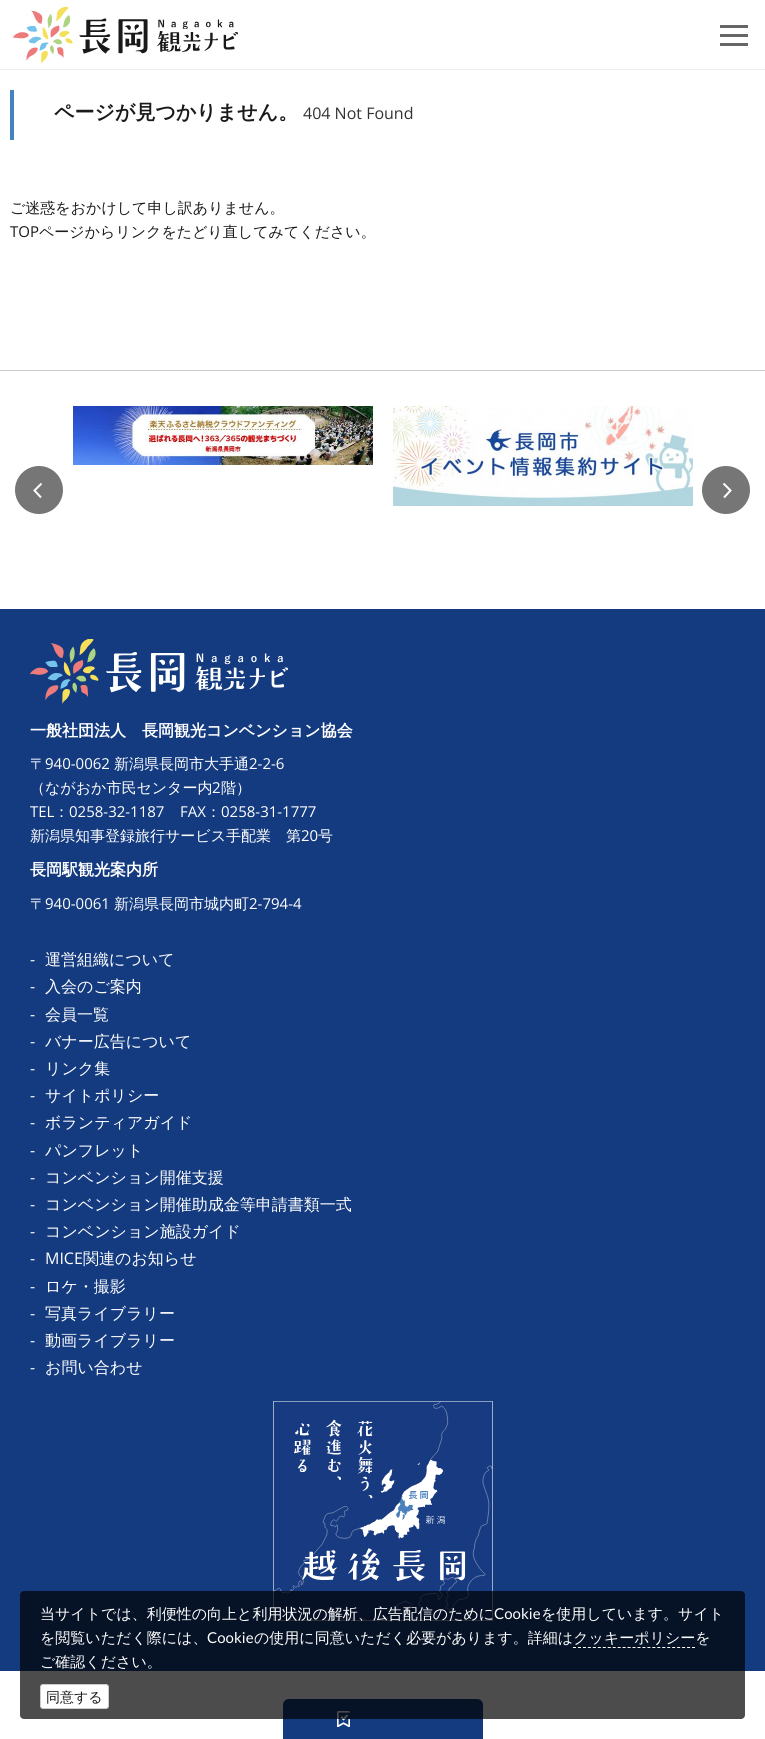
#include <cairo/cairo.h>
#include <math.h>
#include <stddef.h>


static void rounded_rect(cairo_t *cr, double x, double y, double w, double h, double r) {
  cairo_new_sub_path(cr);
  cairo_arc(cr, x + w - r, y + h - r, r, 0, M_PI / 2);
  cairo_arc(cr, x + r, y + h - r, r, M_PI / 2, M_PI);
  cairo_arc(cr, x + r, y + r, r, M_PI, 1.5 * M_PI);
  cairo_arc(cr, x + w - r, y + r, r, 1.5 * M_PI, 2 * M_PI);
  cairo_close_path(cr);
}

static void draw_image(cairo_t *cr, const char *path, double x, double y, double w, double h) {
  cairo_surface_t *image = cairo_image_surface_create_from_png(path);
  cairo_save(cr);
  cairo_set_source_surface(cr, image, x, y);
  cairo_rectangle(cr, x, y, w, h);
  cairo_fill(cr);
  cairo_restore(cr);
  cairo_surface_destroy(image);
}

static void draw(cairo_t *cr) {
  cairo_set_source_rgb(cr, 1, 1, 1);
  cairo_paint(cr);
  cairo_set_source_rgb(cr, 238 / 255.0, 238 / 255.0, 238 / 255.0);
  cairo_rectangle(cr, 0, 69, 765, 1);
  cairo_fill(cr);
  draw_image(cr, "images/1.png", 13, 7, 225, 57);
  cairo_set_source_rgb(cr, 102 / 255.0, 102 / 255.0, 102 / 255.0);
  cairo_rectangle(cr, 720, 34, 28, 3);
  cairo_fill(cr);
  cairo_rectangle(cr, 720, 25, 28, 3);
  cairo_fill(cr);
  cairo_rectangle(cr, 720, 43, 28, 3);
  cairo_fill(cr);
  cairo_set_source_rgb(cr, 69 / 255.0, 131 / 255.0, 190 / 255.0);
  cairo_rectangle(cr, 10, 90, 4, 50);
  cairo_fill(cr);
  cairo_set_source_rgb(cr, 204 / 255.0, 204 / 255.0, 204 / 255.0);
  cairo_rectangle(cr, 0, 370, 765, 1);
  cairo_fill(cr);
  cairo_set_source_rgb(cr, 118 / 255.0, 118 / 255.0, 118 / 255.0);
  cairo_arc(cr, 39, 490, 24, 0, 2 * M_PI);
  cairo_fill(cr);
  cairo_new_path(cr);
  cairo_move_to(cr, 41, 497.5);
  cairo_line_to(cr, 34.5, 490.5);
  cairo_line_to(cr, 41.5, 483.5);
  cairo_set_source_rgb(cr, 1, 1, 1);
  cairo_stroke(cr);
  draw_image(cr, "images/2.png", 73, 406, 300, 59);
  draw_image(cr, "images/3.png", 393, 406, 300, 100);
  cairo_set_source_rgb(cr, 118 / 255.0, 118 / 255.0, 118 / 255.0);
  cairo_arc(cr, 726, 490, 24, 0, 2 * M_PI);
  cairo_fill(cr);
  cairo_new_path(cr);
  cairo_move_to(cr, 724, 497.5);
  cairo_line_to(cr, 730.5, 490.5);
  cairo_line_to(cr, 723.5, 483.5);
  cairo_set_source_rgb(cr, 1, 1, 1);
  cairo_stroke(cr);
  cairo_set_source_rgb(cr, 20 / 255.0, 59 / 255.0, 128 / 255.0);
  cairo_rectangle(cr, 0, 609, 765, 1062);
  cairo_fill(cr);
  draw_image(cr, "images/4.png", 30, 639, 258, 65);
  draw_image(cr, "images/5.png", 273, 1401, 220, 220);
  cairo_new_path(cr);
  cairo_move_to(cr, 289, 1699);
  cairo_line_to(cr, 477, 1699);
  cairo_curve_to(cr, 480.5, 1699, 483, 1701.5, 483, 1705);
  cairo_line_to(cr, 483, 1739);
  cairo_line_to(cr, 283, 1739);
  cairo_line_to(cr, 283, 1705);
  cairo_curve_to(cr, 283, 1701.5, 285.5, 1699, 289, 1699);
  cairo_close_path(cr);
  cairo_fill(cr);
  draw_image(cr, "images/6.png", 337, 1711, 13, 16);
  cairo_set_source_rgba(cr, 0, 0, 0, 0.7);
  rounded_rect(cr, 20, 1591, 725, 128, 4);
  cairo_fill(cr);
  cairo_new_path(cr);
  cairo_move_to(cr, 573, 1647.5);
  cairo_line_to(cr, 695, 1647.5);
  cairo_set_source_rgb(cr, 1, 1, 1);
  cairo_set_line_width(cr, 1);
  cairo_set_dash(cr, (double[]){3, 1.96}, 2, 0);
  cairo_stroke(cr);
  rounded_rect(cr, 40.5, 1684.5, 68, 24, 2.5);
  cairo_fill_preserve(cr);
  cairo_set_source_rgb(cr, 204 / 255.0, 204 / 255.0, 204 / 255.0);
  cairo_set_dash(cr, NULL, 0, 0);
  cairo_stroke(cr);
  cairo_select_font_face(cr, "WenQuanYi Zen Hei", CAIRO_FONT_SLANT_NORMAL, CAIRO_FONT_WEIGHT_BOLD);
  cairo_set_font_size(cr, 20);
  cairo_set_source_rgb(cr, 26 / 255.0, 26 / 255.0, 26 / 255.0);
  cairo_move_to(cr, 54, 119);
  cairo_show_text(cr, "ページが見つかりません。");
  cairo_select_font_face(cr, "Open Sans", CAIRO_FONT_SLANT_NORMAL, CAIRO_FONT_WEIGHT_NORMAL);
  cairo_set_font_size(cr, 16);
  cairo_set_source_rgb(cr, 51 / 255.0, 51 / 255.0, 51 / 255.0);
  cairo_move_to(cr, 303, 119);
  cairo_show_text(cr, "404 Not Found");
  cairo_select_font_face(cr, "WenQuanYi Zen Hei Medium", CAIRO_FONT_SLANT_NORMAL, CAIRO_FONT_WEIGHT_NORMAL);
  cairo_set_font_size(cr, 15);
  cairo_set_source_rgb(cr, 26 / 255.0, 26 / 255.0, 26 / 255.0);
  cairo_move_to(cr, 10, 213);
  cairo_show_text(cr, "ご迷惑をおかけして申し訳ありません。");
  cairo_select_font_face(cr, "Open Sans", CAIRO_FONT_SLANT_NORMAL, CAIRO_FONT_WEIGHT_NORMAL);
  cairo_move_to(cr, 10, 237);
  cairo_show_text(cr, "TOP");
  cairo_select_font_face(cr, "WenQuanYi Zen Hei Medium", CAIRO_FONT_SLANT_NORMAL, CAIRO_FONT_WEIGHT_NORMAL);
  cairo_move_to(cr, 39, 237);
  cairo_show_text(cr, "ページからリンクをたどり直してみてください。");
  cairo_select_font_face(cr, "WenQuanYi Zen Hei", CAIRO_FONT_SLANT_NORMAL, CAIRO_FONT_WEIGHT_BOLD);
  cairo_set_font_size(cr, 16);
  cairo_set_source_rgb(cr, 1, 1, 1);
  cairo_move_to(cr, 30, 736);
  cairo_show_text(cr, "一般社団法人　長岡観光コンベンション協会");
  cairo_select_font_face(cr, "WenQuanYi Zen Hei Medium", CAIRO_FONT_SLANT_NORMAL, CAIRO_FONT_WEIGHT_NORMAL);
  cairo_set_font_size(cr, 15);
  cairo_move_to(cr, 30, 769);
  cairo_show_text(cr, "〒");
  cairo_select_font_face(cr, "Open Sans", CAIRO_FONT_SLANT_NORMAL, CAIRO_FONT_WEIGHT_NORMAL);
  cairo_move_to(cr, 45, 769);
  cairo_show_text(cr, "940-0062");
  cairo_select_font_face(cr, "WenQuanYi Zen Hei Medium", CAIRO_FONT_SLANT_NORMAL, CAIRO_FONT_WEIGHT_NORMAL);
  cairo_move_to(cr, 114, 769);
  cairo_show_text(cr, "新潟県長岡市大手通");
  cairo_select_font_face(cr, "Open Sans", CAIRO_FONT_SLANT_NORMAL, CAIRO_FONT_WEIGHT_NORMAL);
  cairo_move_to(cr, 249, 769);
  cairo_show_text(cr, "2-2-6");
  cairo_select_font_face(cr, "WenQuanYi Zen Hei Medium", CAIRO_FONT_SLANT_NORMAL, CAIRO_FONT_WEIGHT_NORMAL);
  cairo_move_to(cr, 30, 793);
  cairo_show_text(cr, "（ながおか市民センター内");
  cairo_select_font_face(cr, "Open Sans", CAIRO_FONT_SLANT_NORMAL, CAIRO_FONT_WEIGHT_NORMAL);
  cairo_move_to(cr, 212, 793);
  cairo_show_text(cr, "2");
  cairo_select_font_face(cr, "WenQuanYi Zen Hei Medium", CAIRO_FONT_SLANT_NORMAL, CAIRO_FONT_WEIGHT_NORMAL);
  cairo_move_to(cr, 221, 793);
  cairo_show_text(cr, "階）");
  cairo_select_font_face(cr, "Open Sans", CAIRO_FONT_SLANT_NORMAL, CAIRO_FONT_WEIGHT_NORMAL);
  cairo_move_to(cr, 30, 817);
  cairo_show_text(cr, "TEL");
  cairo_select_font_face(cr, "WenQuanYi Zen Hei Medium", CAIRO_FONT_SLANT_NORMAL, CAIRO_FONT_WEIGHT_NORMAL);
  cairo_move_to(cr, 54, 817);
  cairo_show_text(cr, "：");
  cairo_select_font_face(cr, "Open Sans", CAIRO_FONT_SLANT_NORMAL, CAIRO_FONT_WEIGHT_NORMAL);
  cairo_move_to(cr, 69, 817);
  cairo_show_text(cr, "0258-32-1187");
  cairo_move_to(cr, 180, 817);
  cairo_show_text(cr, "FAX");
  cairo_select_font_face(cr, "WenQuanYi Zen Hei Medium", CAIRO_FONT_SLANT_NORMAL, CAIRO_FONT_WEIGHT_NORMAL);
  cairo_move_to(cr, 206, 817);
  cairo_show_text(cr, "：");
  cairo_select_font_face(cr, "Open Sans", CAIRO_FONT_SLANT_NORMAL, CAIRO_FONT_WEIGHT_NORMAL);
  cairo_move_to(cr, 221, 817);
  cairo_show_text(cr, "0258-31-1777");
  cairo_select_font_face(cr, "WenQuanYi Zen Hei Medium", CAIRO_FONT_SLANT_NORMAL, CAIRO_FONT_WEIGHT_NORMAL);
  cairo_move_to(cr, 30, 841);
  cairo_show_text(cr, "新潟県知事登録旅行サービス手配業　第");
  cairo_select_font_face(cr, "Open Sans", CAIRO_FONT_SLANT_NORMAL, CAIRO_FONT_WEIGHT_NORMAL);
  cairo_move_to(cr, 301, 841);
  cairo_show_text(cr, "20");
  cairo_select_font_face(cr, "WenQuanYi Zen Hei Medium", CAIRO_FONT_SLANT_NORMAL, CAIRO_FONT_WEIGHT_NORMAL);
  cairo_move_to(cr, 318, 841);
  cairo_show_text(cr, "号");
  cairo_select_font_face(cr, "WenQuanYi Zen Hei", CAIRO_FONT_SLANT_NORMAL, CAIRO_FONT_WEIGHT_BOLD);
  cairo_set_font_size(cr, 16);
  cairo_move_to(cr, 30, 875);
  cairo_show_text(cr, "長岡駅観光案内所");
  cairo_select_font_face(cr, "WenQuanYi Zen Hei Medium", CAIRO_FONT_SLANT_NORMAL, CAIRO_FONT_WEIGHT_NORMAL);
  cairo_set_font_size(cr, 15);
  cairo_move_to(cr, 30, 909);
  cairo_show_text(cr, "〒");
  cairo_select_font_face(cr, "Open Sans", CAIRO_FONT_SLANT_NORMAL, CAIRO_FONT_WEIGHT_NORMAL);
  cairo_move_to(cr, 45, 909);
  cairo_show_text(cr, "940-0061");
  cairo_select_font_face(cr, "WenQuanYi Zen Hei Medium", CAIRO_FONT_SLANT_NORMAL, CAIRO_FONT_WEIGHT_NORMAL);
  cairo_move_to(cr, 114, 909);
  cairo_show_text(cr, "新潟県長岡市城内町");
  cairo_select_font_face(cr, "Open Sans", CAIRO_FONT_SLANT_NORMAL, CAIRO_FONT_WEIGHT_NORMAL);
  cairo_move_to(cr, 249, 909);
  cairo_show_text(cr, "2-794-4");
  cairo_set_font_size(cr, 16);
  cairo_move_to(cr, 30, 965);
  cairo_show_text(cr, "-");
  cairo_select_font_face(cr, "WenQuanYi Zen Hei Medium", CAIRO_FONT_SLANT_NORMAL, CAIRO_FONT_WEIGHT_NORMAL);
  cairo_move_to(cr, 45, 965);
  cairo_show_text(cr, "運営組織について");
  cairo_select_font_face(cr, "Open Sans", CAIRO_FONT_SLANT_NORMAL, CAIRO_FONT_WEIGHT_NORMAL);
  cairo_move_to(cr, 30, 992);
  cairo_show_text(cr, "-");
  cairo_select_font_face(cr, "WenQuanYi Zen Hei Medium", CAIRO_FONT_SLANT_NORMAL, CAIRO_FONT_WEIGHT_NORMAL);
  cairo_move_to(cr, 45, 992);
  cairo_show_text(cr, "入会のご案内");
  cairo_select_font_face(cr, "Open Sans", CAIRO_FONT_SLANT_NORMAL, CAIRO_FONT_WEIGHT_NORMAL);
  cairo_move_to(cr, 30, 1020);
  cairo_show_text(cr, "-");
  cairo_select_font_face(cr, "WenQuanYi Zen Hei Medium", CAIRO_FONT_SLANT_NORMAL, CAIRO_FONT_WEIGHT_NORMAL);
  cairo_move_to(cr, 45, 1020);
  cairo_show_text(cr, "会員一覧");
  cairo_select_font_face(cr, "Open Sans", CAIRO_FONT_SLANT_NORMAL, CAIRO_FONT_WEIGHT_NORMAL);
  cairo_move_to(cr, 30, 1047);
  cairo_show_text(cr, "-");
  cairo_select_font_face(cr, "WenQuanYi Zen Hei Medium", CAIRO_FONT_SLANT_NORMAL, CAIRO_FONT_WEIGHT_NORMAL);
  cairo_move_to(cr, 45, 1047);
  cairo_show_text(cr, "バナー広告について");
  cairo_select_font_face(cr, "Open Sans", CAIRO_FONT_SLANT_NORMAL, CAIRO_FONT_WEIGHT_NORMAL);
  cairo_move_to(cr, 30, 1074);
  cairo_show_text(cr, "-");
  cairo_select_font_face(cr, "WenQuanYi Zen Hei Medium", CAIRO_FONT_SLANT_NORMAL, CAIRO_FONT_WEIGHT_NORMAL);
  cairo_move_to(cr, 45, 1074);
  cairo_show_text(cr, "リンク集");
  cairo_select_font_face(cr, "Open Sans", CAIRO_FONT_SLANT_NORMAL, CAIRO_FONT_WEIGHT_NORMAL);
  cairo_move_to(cr, 30, 1101);
  cairo_show_text(cr, "-");
  cairo_select_font_face(cr, "WenQuanYi Zen Hei Medium", CAIRO_FONT_SLANT_NORMAL, CAIRO_FONT_WEIGHT_NORMAL);
  cairo_move_to(cr, 45, 1101);
  cairo_show_text(cr, "サイトポリシー");
  cairo_select_font_face(cr, "Open Sans", CAIRO_FONT_SLANT_NORMAL, CAIRO_FONT_WEIGHT_NORMAL);
  cairo_move_to(cr, 30, 1128);
  cairo_show_text(cr, "-");
  cairo_select_font_face(cr, "WenQuanYi Zen Hei Medium", CAIRO_FONT_SLANT_NORMAL, CAIRO_FONT_WEIGHT_NORMAL);
  cairo_move_to(cr, 45, 1128);
  cairo_show_text(cr, "ボランティアガイド");
  cairo_select_font_face(cr, "Open Sans", CAIRO_FONT_SLANT_NORMAL, CAIRO_FONT_WEIGHT_NORMAL);
  cairo_move_to(cr, 30, 1156);
  cairo_show_text(cr, "-");
  cairo_select_font_face(cr, "WenQuanYi Zen Hei Medium", CAIRO_FONT_SLANT_NORMAL, CAIRO_FONT_WEIGHT_NORMAL);
  cairo_move_to(cr, 45, 1156);
  cairo_show_text(cr, "パンフレット");
  cairo_select_font_face(cr, "Open Sans", CAIRO_FONT_SLANT_NORMAL, CAIRO_FONT_WEIGHT_NORMAL);
  cairo_move_to(cr, 30, 1183);
  cairo_show_text(cr, "-");
  cairo_select_font_face(cr, "WenQuanYi Zen Hei Medium", CAIRO_FONT_SLANT_NORMAL, CAIRO_FONT_WEIGHT_NORMAL);
  cairo_move_to(cr, 45, 1183);
  cairo_show_text(cr, "コンベンション開催支援");
  cairo_select_font_face(cr, "Open Sans", CAIRO_FONT_SLANT_NORMAL, CAIRO_FONT_WEIGHT_NORMAL);
  cairo_move_to(cr, 30, 1210);
  cairo_show_text(cr, "-");
  cairo_select_font_face(cr, "WenQuanYi Zen Hei Medium", CAIRO_FONT_SLANT_NORMAL, CAIRO_FONT_WEIGHT_NORMAL);
  cairo_move_to(cr, 45, 1210);
  cairo_show_text(cr, "コンベンション開催助成金等申請書類一式");
  cairo_select_font_face(cr, "Open Sans", CAIRO_FONT_SLANT_NORMAL, CAIRO_FONT_WEIGHT_NORMAL);
  cairo_move_to(cr, 30, 1237);
  cairo_show_text(cr, "-");
  cairo_select_font_face(cr, "WenQuanYi Zen Hei Medium", CAIRO_FONT_SLANT_NORMAL, CAIRO_FONT_WEIGHT_NORMAL);
  cairo_move_to(cr, 45, 1237);
  cairo_show_text(cr, "コンベンション施設ガイド");
  cairo_select_font_face(cr, "Open Sans", CAIRO_FONT_SLANT_NORMAL, CAIRO_FONT_WEIGHT_NORMAL);
  cairo_move_to(cr, 30, 1264);
  cairo_show_text(cr, "-");
  cairo_move_to(cr, 45, 1264);
  cairo_show_text(cr, "MICE");
  cairo_select_font_face(cr, "WenQuanYi Zen Hei Medium", CAIRO_FONT_SLANT_NORMAL, CAIRO_FONT_WEIGHT_NORMAL);
  cairo_move_to(cr, 83, 1264);
  cairo_show_text(cr, "関連のお知らせ");
  cairo_select_font_face(cr, "Open Sans", CAIRO_FONT_SLANT_NORMAL, CAIRO_FONT_WEIGHT_NORMAL);
  cairo_move_to(cr, 30, 1292);
  cairo_show_text(cr, "-");
  cairo_select_font_face(cr, "WenQuanYi Zen Hei Medium", CAIRO_FONT_SLANT_NORMAL, CAIRO_FONT_WEIGHT_NORMAL);
  cairo_move_to(cr, 45, 1292);
  cairo_show_text(cr, "ロケ・撮影");
  cairo_select_font_face(cr, "Open Sans", CAIRO_FONT_SLANT_NORMAL, CAIRO_FONT_WEIGHT_NORMAL);
  cairo_move_to(cr, 30, 1319);
  cairo_show_text(cr, "-");
  cairo_select_font_face(cr, "WenQuanYi Zen Hei Medium", CAIRO_FONT_SLANT_NORMAL, CAIRO_FONT_WEIGHT_NORMAL);
  cairo_move_to(cr, 45, 1319);
  cairo_show_text(cr, "写真ライブラリー");
  cairo_select_font_face(cr, "Open Sans", CAIRO_FONT_SLANT_NORMAL, CAIRO_FONT_WEIGHT_NORMAL);
  cairo_move_to(cr, 30, 1346);
  cairo_show_text(cr, "-");
  cairo_select_font_face(cr, "WenQuanYi Zen Hei Medium", CAIRO_FONT_SLANT_NORMAL, CAIRO_FONT_WEIGHT_NORMAL);
  cairo_move_to(cr, 45, 1346);
  cairo_show_text(cr, "動画ライブラリー");
  cairo_select_font_face(cr, "Open Sans", CAIRO_FONT_SLANT_NORMAL, CAIRO_FONT_WEIGHT_NORMAL);
  cairo_move_to(cr, 30, 1373);
  cairo_show_text(cr, "-");
  cairo_select_font_face(cr, "WenQuanYi Zen Hei Medium", CAIRO_FONT_SLANT_NORMAL, CAIRO_FONT_WEIGHT_NORMAL);
  cairo_move_to(cr, 45, 1373);
  cairo_show_text(cr, "お問い合わせ");
  cairo_set_font_size(cr, 15);
  cairo_move_to(cr, 40, 1619);
  cairo_show_text(cr, "当サイトでは、利便性の向上と利用状況の解析、広告配信のために");
  cairo_select_font_face(cr, "Lato", CAIRO_FONT_SLANT_NORMAL, CAIRO_FONT_WEIGHT_NORMAL);
  cairo_move_to(cr, 494, 1619);
  cairo_show_text(cr, "Cookie");
  cairo_select_font_face(cr, "WenQuanYi Zen Hei Medium", CAIRO_FONT_SLANT_NORMAL, CAIRO_FONT_WEIGHT_NORMAL);
  cairo_move_to(cr, 541, 1619);
  cairo_show_text(cr, "を使用しています。サイト");
  cairo_move_to(cr, 40, 1643);
  cairo_show_text(cr, "を閲覧いただく際には、");
  cairo_select_font_face(cr, "Lato", CAIRO_FONT_SLANT_NORMAL, CAIRO_FONT_WEIGHT_NORMAL);
  cairo_move_to(cr, 207, 1643);
  cairo_show_text(cr, "Cookie");
  cairo_select_font_face(cr, "WenQuanYi Zen Hei Medium", CAIRO_FONT_SLANT_NORMAL, CAIRO_FONT_WEIGHT_NORMAL);
  cairo_move_to(cr, 254, 1643);
  cairo_show_text(cr, "の使用に同意いただく必要があります。詳細はクッキーポリシーを");
  cairo_move_to(cr, 40, 1667);
  cairo_show_text(cr, "ご確認ください。");
  cairo_set_font_size(cr, 14);
  cairo_set_source_rgb(cr, 26 / 255.0, 26 / 255.0, 26 / 255.0);
  cairo_move_to(cr, 46, 1702);
  cairo_show_text(cr, "同意する");
}

int main(void) {
  cairo_surface_t *surface = cairo_image_surface_create(CAIRO_FORMAT_RGB24, 765, 1739);
  cairo_t *cr = cairo_create(surface);
  cairo_font_options_t *options = cairo_font_options_create();
  cairo_font_options_set_hint_metrics(options, CAIRO_HINT_METRICS_OFF);
  cairo_font_options_set_hint_style(options, CAIRO_HINT_STYLE_NONE);
  cairo_set_font_options(cr, options);
  cairo_set_miter_limit(cr, 4);
  draw(cr);
  cairo_surface_write_to_png(surface, "out.png");
  cairo_font_options_destroy(options);
  cairo_destroy(cr);
  cairo_surface_destroy(surface);
  return 0;
}
